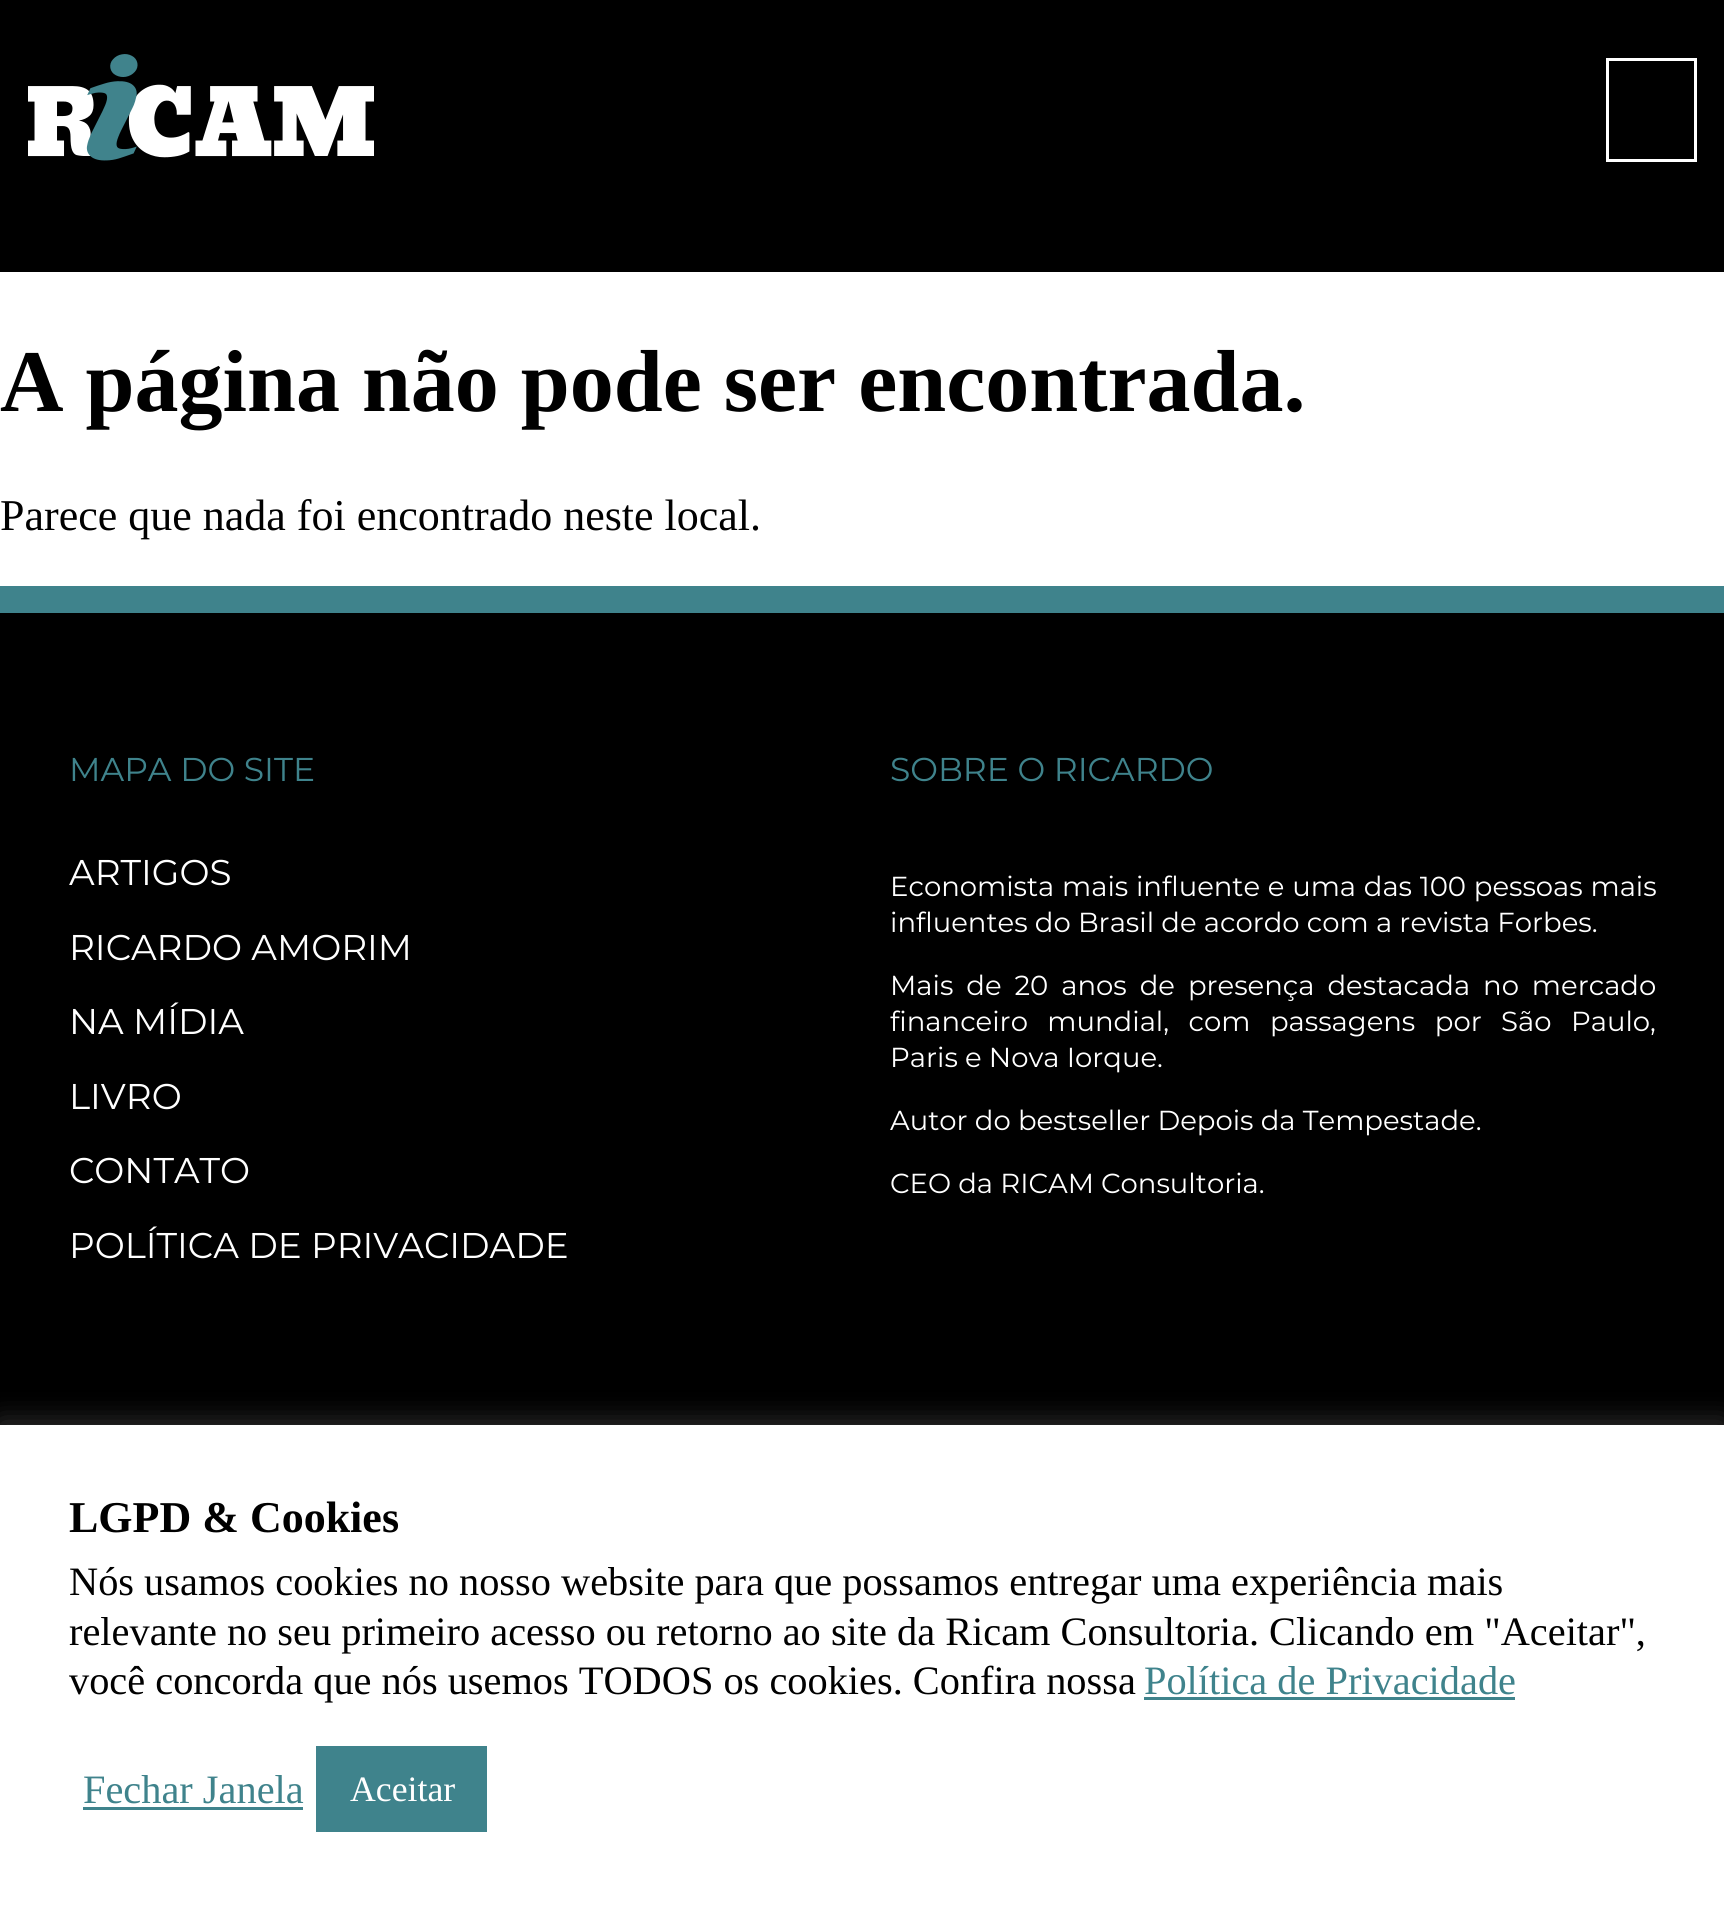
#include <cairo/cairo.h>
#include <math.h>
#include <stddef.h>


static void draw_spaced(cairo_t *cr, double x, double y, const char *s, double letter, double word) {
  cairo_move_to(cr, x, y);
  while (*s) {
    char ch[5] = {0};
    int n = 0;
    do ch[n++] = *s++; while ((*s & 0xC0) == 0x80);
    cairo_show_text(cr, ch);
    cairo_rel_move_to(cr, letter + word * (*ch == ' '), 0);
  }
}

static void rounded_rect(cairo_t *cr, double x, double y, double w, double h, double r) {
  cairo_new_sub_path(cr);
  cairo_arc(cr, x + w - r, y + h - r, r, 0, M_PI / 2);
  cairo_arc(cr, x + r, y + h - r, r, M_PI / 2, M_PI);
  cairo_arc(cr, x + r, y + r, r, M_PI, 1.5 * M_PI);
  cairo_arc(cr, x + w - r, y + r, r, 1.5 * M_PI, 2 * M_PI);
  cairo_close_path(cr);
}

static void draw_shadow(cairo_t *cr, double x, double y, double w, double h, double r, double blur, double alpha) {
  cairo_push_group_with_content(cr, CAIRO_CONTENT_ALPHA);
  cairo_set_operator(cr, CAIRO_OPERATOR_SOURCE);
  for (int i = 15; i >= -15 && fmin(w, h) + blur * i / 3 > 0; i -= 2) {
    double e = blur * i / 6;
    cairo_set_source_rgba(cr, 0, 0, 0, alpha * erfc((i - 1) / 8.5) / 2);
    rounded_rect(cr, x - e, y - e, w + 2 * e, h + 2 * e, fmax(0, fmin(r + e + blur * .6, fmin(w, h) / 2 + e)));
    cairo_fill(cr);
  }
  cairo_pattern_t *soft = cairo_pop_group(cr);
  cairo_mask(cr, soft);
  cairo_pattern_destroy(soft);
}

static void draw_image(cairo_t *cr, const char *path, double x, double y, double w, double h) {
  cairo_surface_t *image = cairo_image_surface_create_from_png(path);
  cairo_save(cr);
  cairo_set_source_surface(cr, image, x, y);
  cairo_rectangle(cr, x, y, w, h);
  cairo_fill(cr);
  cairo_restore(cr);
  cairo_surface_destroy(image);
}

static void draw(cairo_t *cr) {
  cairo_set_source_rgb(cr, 1, 1, 1);
  cairo_paint(cr);
  cairo_set_source_rgb(cr, 0, 0, 0);
  cairo_rectangle(cr, 0, 0, 1724, 272);
  cairo_fill(cr);
  draw_image(cr, "images/1.png", 28, 54, 346, 107);
  cairo_rectangle(cr, 1607.5, 59.5, 88, 101);
  cairo_set_source_rgb(cr, 1, 1, 1);
  cairo_set_line_width(cr, 3);
  cairo_stroke(cr);
  cairo_set_source_rgb(cr, 0, 0, 0);
  cairo_rectangle(cr, 0, 613, 1724, 812);
  cairo_fill(cr);
  cairo_set_source_rgb(cr, 63 / 255.0, 131 / 255.0, 140 / 255.0);
  cairo_rectangle(cr, 0, 586, 1724, 27);
  cairo_fill(cr);
  cairo_set_source_rgb(cr, 172 / 255.0, 171 / 255.0, 171 / 255.0);
  draw_shadow(cr, 0, 1422, 1724, 489, 0, 14, 0.3);
  cairo_set_source_rgb(cr, 1, 1, 1);
  cairo_rectangle(cr, 0, 1425, 1724, 487);
  cairo_fill(cr);
  cairo_set_source_rgb(cr, 63 / 255.0, 131 / 255.0, 140 / 255.0);
  cairo_rectangle(cr, 1144, 1697, 371, 3);
  cairo_fill(cr);
  cairo_rectangle(cr, 83, 1807, 220, 3);
  cairo_fill(cr);
  cairo_rectangle(cr, 316, 1746, 171, 86);
  cairo_fill(cr);
  cairo_select_font_face(cr, "Liberation Serif", CAIRO_FONT_SLANT_NORMAL, CAIRO_FONT_WEIGHT_BOLD);
  cairo_set_font_size(cr, 88);
  cairo_set_source_rgb(cr, 0, 0, 0);
  cairo_move_to(cr, 0, 411);
  cairo_show_text(cr, "A página não pode ser encontrada.");
  cairo_select_font_face(cr, "Liberation Serif", CAIRO_FONT_SLANT_NORMAL, CAIRO_FONT_WEIGHT_NORMAL);
  cairo_set_font_size(cr, 44);
  cairo_move_to(cr, 0, 530);
  cairo_show_text(cr, "Parece que nada foi encontrado neste local.");
  cairo_select_font_face(cr, "Montserrat Thin", CAIRO_FONT_SLANT_NORMAL, CAIRO_FONT_WEIGHT_NORMAL);
  cairo_set_font_size(cr, 33);
  cairo_set_source_rgb(cr, 63 / 255.0, 131 / 255.0, 140 / 255.0);
  cairo_move_to(cr, 69, 781);
  cairo_show_text(cr, "MAPA DO SITE");
  cairo_set_font_size(cr, 35.75);
  cairo_set_source_rgb(cr, 1, 1, 1);
  cairo_move_to(cr, 69, 885);
  cairo_show_text(cr, "ARTIGOS");
  cairo_move_to(cr, 69, 960);
  cairo_show_text(cr, "RICARDO AMORIM");
  cairo_move_to(cr, 69, 1034);
  cairo_show_text(cr, "NA MÍDIA");
  cairo_move_to(cr, 69, 1109);
  cairo_show_text(cr, "LIVRO");
  cairo_move_to(cr, 69, 1183);
  cairo_show_text(cr, "CONTATO");
  cairo_move_to(cr, 69, 1258);
  cairo_show_text(cr, "POLÍTICA DE PRIVACIDADE");
  cairo_set_font_size(cr, 33);
  cairo_set_source_rgb(cr, 63 / 255.0, 131 / 255.0, 140 / 255.0);
  cairo_move_to(cr, 890, 781);
  cairo_show_text(cr, "SOBRE O RICARDO");
  cairo_set_font_size(cr, 27.5);
  cairo_set_source_rgb(cr, 1, 1, 1);
  draw_spaced(cr, 890, 896, "Economista mais influente e uma das 100 pessoas mais", 0, 0.5);
  cairo_move_to(cr, 890, 932);
  cairo_show_text(cr, "influentes do Brasil de acordo com a revista Forbes.");
  draw_spaced(cr, 890, 995, "Mais de 20 anos de presença destacada no mercado", 0, 5.75);
  draw_spaced(cr, 890, 1031, "financeiro mundial, com passagens por São Paulo,", 0, 12.25);
  cairo_move_to(cr, 890, 1067);
  cairo_show_text(cr, "Paris e Nova Iorque.");
  cairo_move_to(cr, 890, 1130);
  cairo_show_text(cr, "Autor do bestseller Depois da Tempestade.");
  cairo_move_to(cr, 890, 1193);
  cairo_show_text(cr, "CEO da RICAM Consultoria.");
  cairo_select_font_face(cr, "Liberation Serif", CAIRO_FONT_SLANT_NORMAL, CAIRO_FONT_WEIGHT_BOLD);
  cairo_set_font_size(cr, 44);
  cairo_set_source_rgb(cr, 0, 0, 0);
  cairo_move_to(cr, 69, 1532);
  cairo_show_text(cr, "LGPD & Cookies");
  cairo_select_font_face(cr, "Liberation Serif", CAIRO_FONT_SLANT_NORMAL, CAIRO_FONT_WEIGHT_NORMAL);
  cairo_set_font_size(cr, 40.35);
  cairo_move_to(cr, 69, 1595);
  cairo_show_text(cr, "Nós usamos cookies no nosso website para que possamos entregar uma experiência mais");
  cairo_move_to(cr, 69, 1645);
  cairo_show_text(cr, "relevante no seu primeiro acesso ou retorno ao site da Ricam Consultoria. Clicando em \"Aceitar\",");
  cairo_move_to(cr, 69, 1694);
  cairo_show_text(cr, "você concorda que nós usemos TODOS os cookies. Confira nossa");
  cairo_set_source_rgb(cr, 63 / 255.0, 131 / 255.0, 140 / 255.0);
  cairo_move_to(cr, 1144, 1694);
  cairo_show_text(cr, "Política de Privacidade");
  cairo_move_to(cr, 83, 1803);
  cairo_show_text(cr, "Fechar Janela");
  cairo_set_font_size(cr, 35.75);
  cairo_set_source_rgb(cr, 1, 1, 1);
  cairo_move_to(cr, 350, 1801);
  cairo_show_text(cr, "Aceitar");
}

int main(void) {
  cairo_surface_t *surface = cairo_image_surface_create(CAIRO_FORMAT_RGB24, 1724, 1912);
  cairo_t *cr = cairo_create(surface);
  cairo_font_options_t *options = cairo_font_options_create();
  cairo_font_options_set_hint_metrics(options, CAIRO_HINT_METRICS_OFF);
  cairo_font_options_set_hint_style(options, CAIRO_HINT_STYLE_NONE);
  cairo_set_font_options(cr, options);
  cairo_set_miter_limit(cr, 4);
  draw(cr);
  cairo_surface_write_to_png(surface, "out.png");
  cairo_font_options_destroy(options);
  cairo_destroy(cr);
  cairo_surface_destroy(surface);
  return 0;
}
